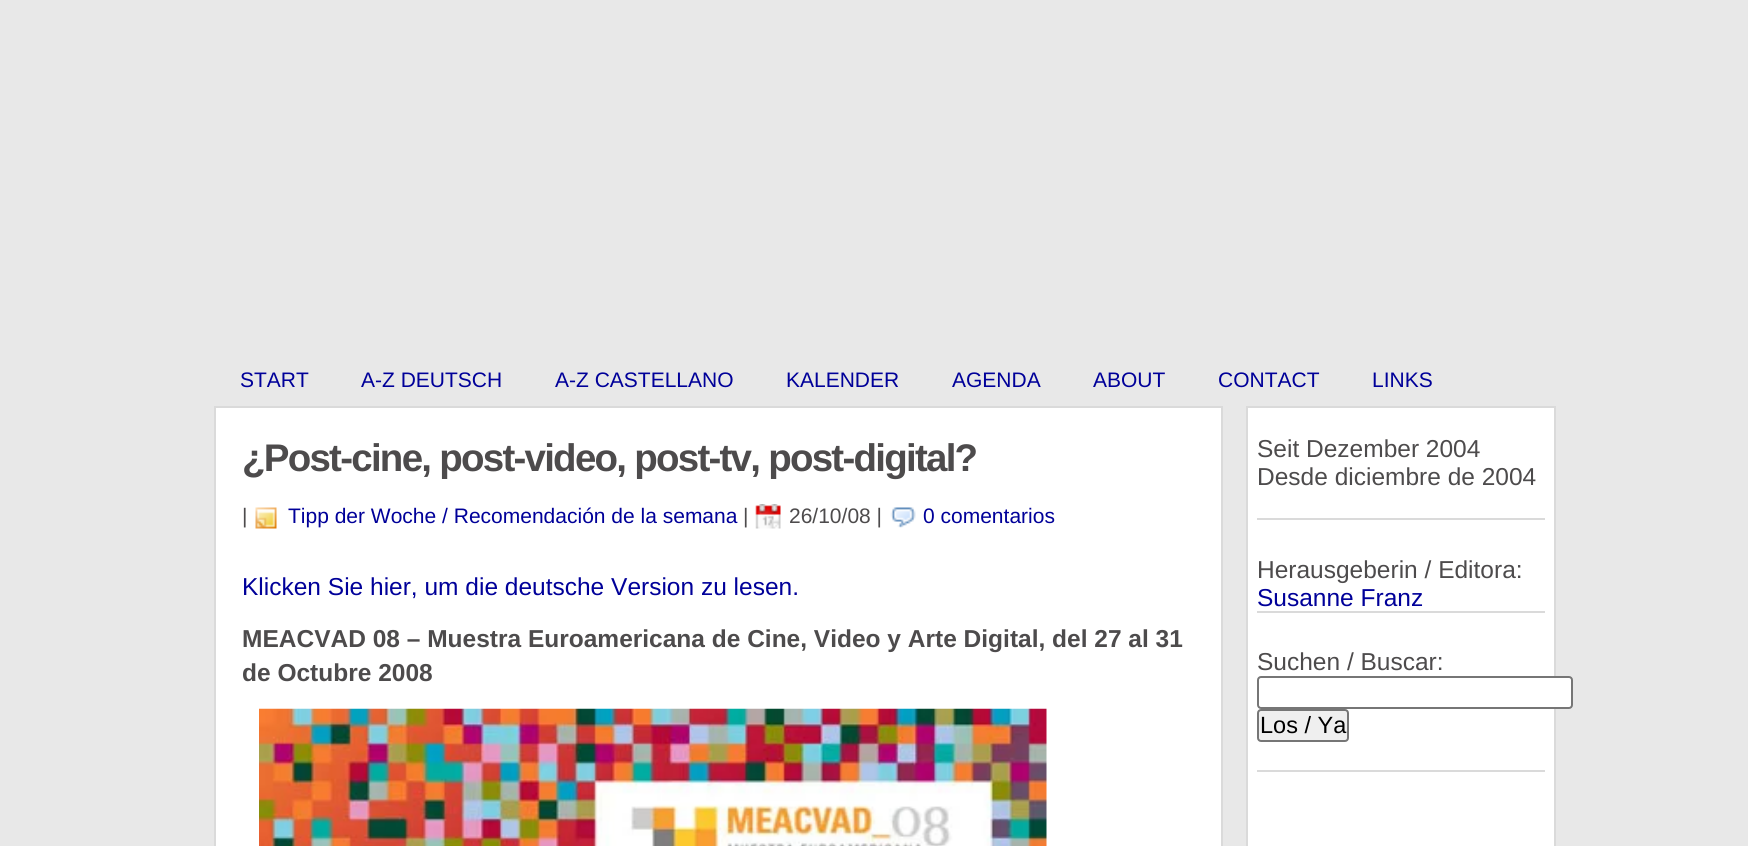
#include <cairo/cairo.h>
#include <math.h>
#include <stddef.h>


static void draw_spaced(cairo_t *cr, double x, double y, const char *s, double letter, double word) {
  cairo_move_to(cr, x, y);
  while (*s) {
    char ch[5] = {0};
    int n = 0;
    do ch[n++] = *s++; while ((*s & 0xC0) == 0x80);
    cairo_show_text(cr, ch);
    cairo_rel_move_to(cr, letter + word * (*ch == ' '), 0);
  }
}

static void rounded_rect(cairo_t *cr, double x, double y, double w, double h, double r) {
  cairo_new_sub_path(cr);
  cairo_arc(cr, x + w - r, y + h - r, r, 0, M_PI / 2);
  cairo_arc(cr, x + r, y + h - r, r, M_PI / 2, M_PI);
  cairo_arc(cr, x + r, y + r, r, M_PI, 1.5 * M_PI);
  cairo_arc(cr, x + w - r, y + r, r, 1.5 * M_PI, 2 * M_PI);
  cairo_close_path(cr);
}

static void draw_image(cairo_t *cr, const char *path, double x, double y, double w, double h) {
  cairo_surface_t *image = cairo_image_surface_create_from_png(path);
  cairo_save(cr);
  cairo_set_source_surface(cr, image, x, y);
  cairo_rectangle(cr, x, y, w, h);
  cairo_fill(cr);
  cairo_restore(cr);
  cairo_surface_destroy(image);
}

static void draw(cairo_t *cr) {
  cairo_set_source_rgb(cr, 232 / 255.0, 232 / 255.0, 232 / 255.0);
  cairo_paint(cr);
  cairo_set_source_rgb(cr, 1, 1, 1);
  cairo_rectangle(cr, 215, 407, 1007, 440);
  cairo_fill_preserve(cr);
  cairo_set_source_rgb(cr, 218 / 255.0, 218 / 255.0, 218 / 255.0);
  cairo_stroke(cr);
  draw_image(cr, "images/1.png", 255, 507, 22, 22);
  draw_image(cr, "images/2.png", 755, 504, 26, 25);
  draw_image(cr, "images/3.png", 890, 507, 26, 21);
  draw_image(cr, "images/4.png", 259, 708, 788, 138);
  cairo_set_source_rgb(cr, 1, 1, 1);
  cairo_rectangle(cr, 1247, 407, 308, 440);
  cairo_fill_preserve(cr);
  cairo_set_source_rgb(cr, 218 / 255.0, 218 / 255.0, 218 / 255.0);
  cairo_stroke(cr);
  cairo_rectangle(cr, 1257, 518, 288, 2);
  cairo_fill(cr);
  cairo_rectangle(cr, 1257, 611, 288, 2);
  cairo_fill(cr);
  cairo_set_source_rgb(cr, 1, 1, 1);
  rounded_rect(cr, 1258, 677, 314, 31, 3);
  cairo_fill_preserve(cr);
  cairo_set_source_rgb(cr, 118 / 255.0, 118 / 255.0, 118 / 255.0);
  cairo_stroke(cr);
  cairo_set_source_rgb(cr, 239 / 255.0, 239 / 255.0, 239 / 255.0);
  rounded_rect(cr, 1258, 710, 90, 31, 3);
  cairo_fill_preserve(cr);
  cairo_set_source_rgb(cr, 118 / 255.0, 118 / 255.0, 118 / 255.0);
  cairo_stroke(cr);
  cairo_set_source_rgb(cr, 218 / 255.0, 218 / 255.0, 218 / 255.0);
  cairo_rectangle(cr, 1257, 770, 288, 2);
  cairo_fill(cr);
  cairo_select_font_face(cr, "Liberation Sans", CAIRO_FONT_SLANT_NORMAL, CAIRO_FONT_WEIGHT_NORMAL);
  cairo_set_font_size(cr, 21);
  cairo_set_source_rgb(cr, 0, 0, 153 / 255.0);
  cairo_move_to(cr, 240, 387);
  cairo_show_text(cr, "START");
  cairo_move_to(cr, 361, 387);
  cairo_show_text(cr, "A-Z DEUTSCH");
  cairo_move_to(cr, 555, 387);
  cairo_show_text(cr, "A-Z CASTELLANO");
  cairo_move_to(cr, 786, 387);
  cairo_show_text(cr, "KALENDER");
  cairo_move_to(cr, 952, 387);
  cairo_show_text(cr, "AGENDA");
  cairo_move_to(cr, 1093, 387);
  cairo_show_text(cr, "ABOUT");
  cairo_move_to(cr, 1218, 387);
  cairo_show_text(cr, "CONTACT");
  cairo_move_to(cr, 1372, 387);
  cairo_show_text(cr, "LINKS");
  cairo_select_font_face(cr, "Liberation Sans", CAIRO_FONT_SLANT_NORMAL, CAIRO_FONT_WEIGHT_BOLD);
  cairo_set_font_size(cr, 38.5);
  cairo_set_source_rgb(cr, 77 / 255.0, 75 / 255.0, 76 / 255.0);
  draw_spaced(cr, 242, 471, "¿Post-cine, post-video, post-tv, post-digital?", -1.75, 0);
  cairo_select_font_face(cr, "Liberation Sans", CAIRO_FONT_SLANT_NORMAL, CAIRO_FONT_WEIGHT_NORMAL);
  cairo_set_font_size(cr, 21);
  cairo_move_to(cr, 242, 523);
  cairo_show_text(cr, "|");
  cairo_set_source_rgb(cr, 0, 0, 153 / 255.0);
  cairo_move_to(cr, 288, 523);
  cairo_show_text(cr, "Tipp der Woche / Recomendación de la semana");
  cairo_set_source_rgb(cr, 77 / 255.0, 75 / 255.0, 76 / 255.0);
  cairo_move_to(cr, 743, 523);
  cairo_show_text(cr, "|");
  cairo_move_to(cr, 789, 523);
  cairo_show_text(cr, "26/10/08 |");
  cairo_set_source_rgb(cr, 0, 0, 153 / 255.0);
  cairo_move_to(cr, 923, 523);
  cairo_show_text(cr, "0 comentarios");
  cairo_set_font_size(cr, 24.5);
  cairo_move_to(cr, 242, 595);
  cairo_show_text(cr, "Klicken Sie hier, um die deutsche Version zu lesen.");
  cairo_select_font_face(cr, "Liberation Sans", CAIRO_FONT_SLANT_NORMAL, CAIRO_FONT_WEIGHT_BOLD);
  cairo_set_source_rgb(cr, 77 / 255.0, 75 / 255.0, 76 / 255.0);
  cairo_move_to(cr, 242, 647);
  cairo_show_text(cr, "MEACVAD 08 – Muestra Euroamericana de Cine, Video y Arte Digital, del 27 al 31");
  cairo_move_to(cr, 242, 681);
  cairo_show_text(cr, "de Octubre 2008");
  cairo_select_font_face(cr, "Liberation Sans", CAIRO_FONT_SLANT_NORMAL, CAIRO_FONT_WEIGHT_NORMAL);
  cairo_move_to(cr, 1257, 457);
  cairo_show_text(cr, "Seit Dezember 2004");
  cairo_move_to(cr, 1257, 485);
  cairo_show_text(cr, "Desde diciembre de 2004");
  cairo_move_to(cr, 1257, 578);
  cairo_show_text(cr, "Herausgeberin / Editora:");
  cairo_set_source_rgb(cr, 0, 0, 153 / 255.0);
  cairo_move_to(cr, 1257, 606);
  cairo_show_text(cr, "Susanne Franz");
  cairo_set_source_rgb(cr, 77 / 255.0, 75 / 255.0, 76 / 255.0);
  cairo_move_to(cr, 1257, 670);
  cairo_show_text(cr, "Suchen / Buscar:");
  cairo_set_font_size(cr, 23.5);
  cairo_set_source_rgb(cr, 0, 0, 0);
  cairo_move_to(cr, 1260, 733);
  cairo_show_text(cr, "Los / Ya");
}

int main(void) {
  cairo_surface_t *surface = cairo_image_surface_create(CAIRO_FORMAT_RGB24, 1748, 846);
  cairo_t *cr = cairo_create(surface);
  cairo_font_options_t *options = cairo_font_options_create();
  cairo_font_options_set_hint_metrics(options, CAIRO_HINT_METRICS_OFF);
  cairo_font_options_set_hint_style(options, CAIRO_HINT_STYLE_NONE);
  cairo_set_font_options(cr, options);
  cairo_set_miter_limit(cr, 4);
  draw(cr);
  cairo_surface_write_to_png(surface, "out.png");
  cairo_font_options_destroy(options);
  cairo_destroy(cr);
  cairo_surface_destroy(surface);
  return 0;
}
